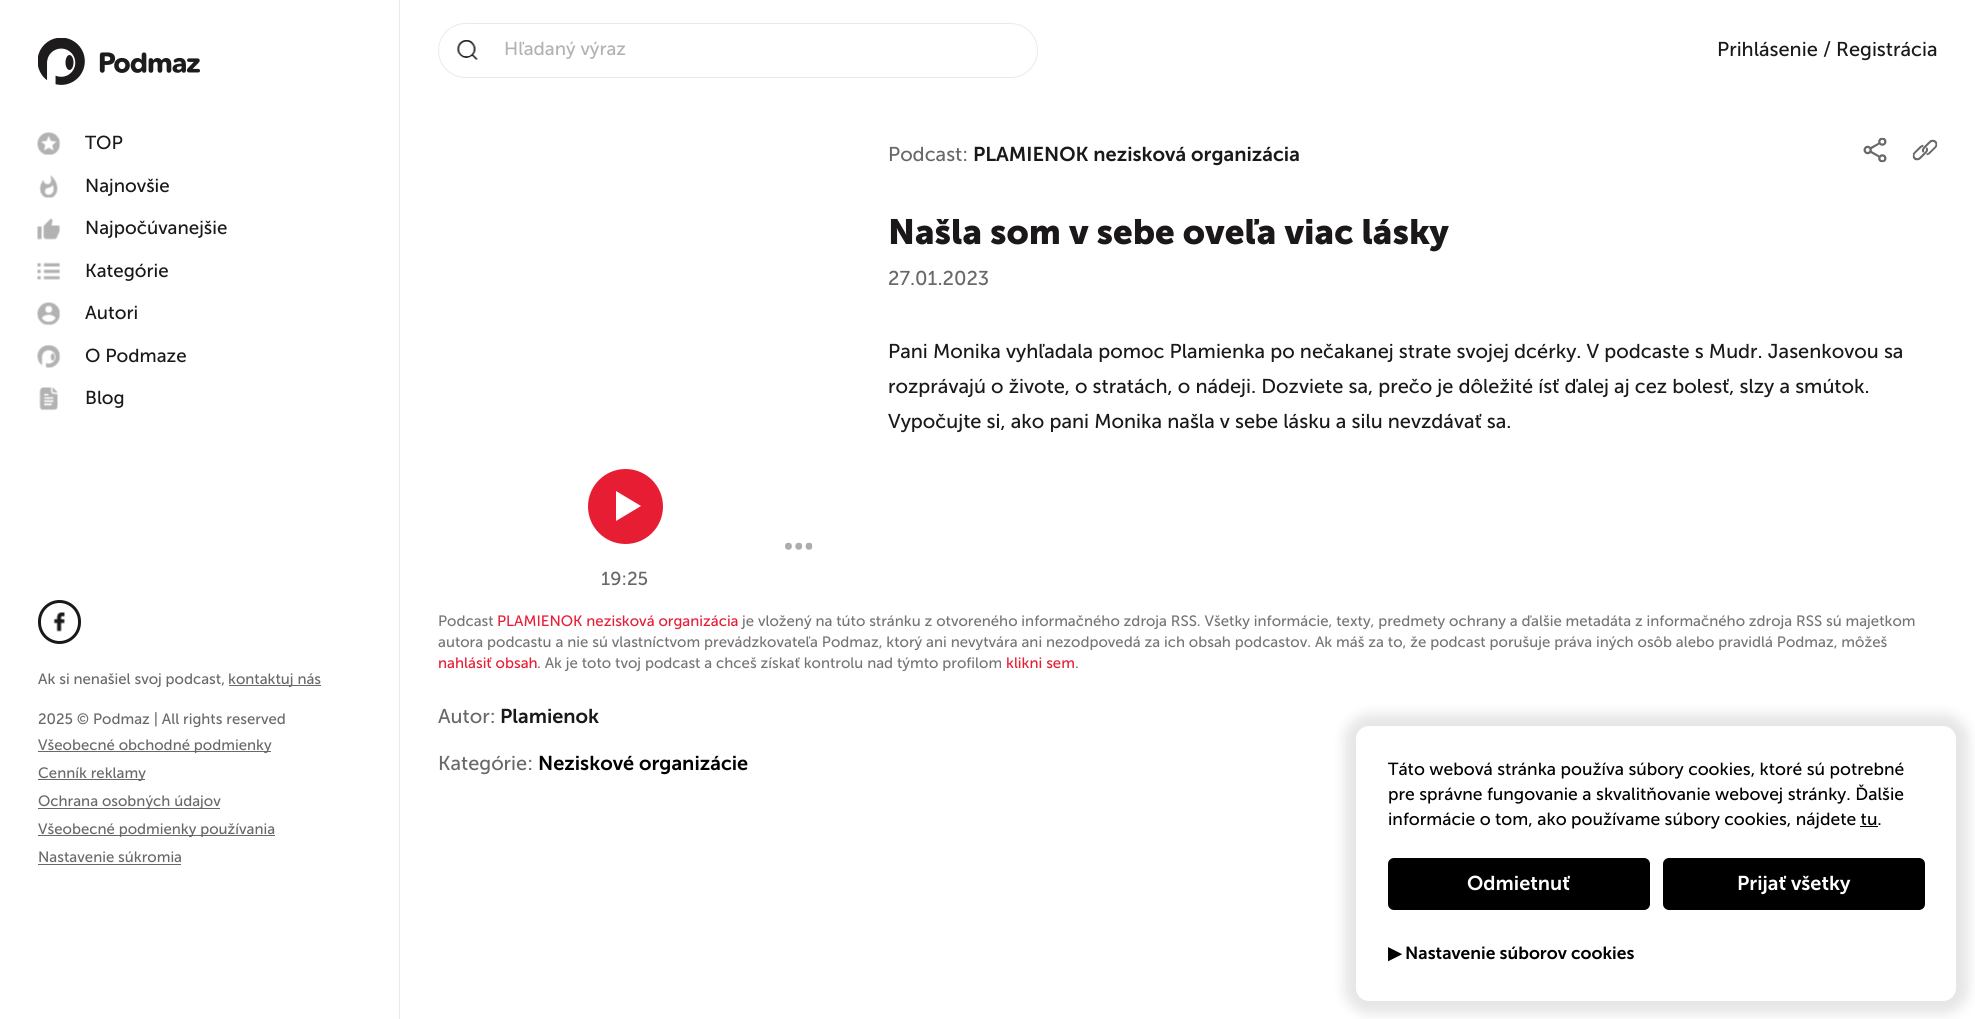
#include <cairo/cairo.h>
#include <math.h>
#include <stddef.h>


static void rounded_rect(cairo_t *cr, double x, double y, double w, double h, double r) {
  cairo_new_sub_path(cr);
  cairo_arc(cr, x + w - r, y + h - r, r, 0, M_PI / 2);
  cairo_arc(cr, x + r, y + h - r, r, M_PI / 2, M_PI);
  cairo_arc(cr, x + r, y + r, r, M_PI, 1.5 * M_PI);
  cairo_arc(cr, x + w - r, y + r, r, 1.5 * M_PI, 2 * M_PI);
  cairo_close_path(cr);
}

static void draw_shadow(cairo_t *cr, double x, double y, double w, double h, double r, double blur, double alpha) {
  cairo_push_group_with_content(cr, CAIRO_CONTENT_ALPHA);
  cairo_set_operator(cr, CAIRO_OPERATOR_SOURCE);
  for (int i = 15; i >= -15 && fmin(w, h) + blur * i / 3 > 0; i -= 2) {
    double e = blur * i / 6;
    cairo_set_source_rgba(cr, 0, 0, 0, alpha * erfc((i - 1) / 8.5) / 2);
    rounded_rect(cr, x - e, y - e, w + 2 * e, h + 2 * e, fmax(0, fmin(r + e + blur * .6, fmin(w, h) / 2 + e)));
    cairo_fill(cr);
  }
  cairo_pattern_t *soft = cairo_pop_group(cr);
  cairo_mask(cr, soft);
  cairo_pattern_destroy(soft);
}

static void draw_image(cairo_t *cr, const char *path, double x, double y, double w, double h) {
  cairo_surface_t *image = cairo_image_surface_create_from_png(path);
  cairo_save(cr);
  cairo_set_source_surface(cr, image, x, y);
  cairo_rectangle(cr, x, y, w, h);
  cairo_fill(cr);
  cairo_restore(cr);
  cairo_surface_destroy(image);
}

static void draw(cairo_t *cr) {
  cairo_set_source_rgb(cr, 1, 1, 1);
  cairo_paint(cr);
  rounded_rect(cr, 438.5, 23.5, 599, 54, 27);
  cairo_set_source_rgb(cr, 234 / 255.0, 234 / 255.0, 234 / 255.0);
  cairo_set_line_width(cr, 1);
  cairo_stroke(cr);
  draw_image(cr, "images/1.png", 457, 40, 21, 20);
  cairo_rectangle(cr, 399, 0, 1, 1019);
  cairo_fill(cr);
  draw_image(cr, "images/2.png", 38, 38, 162, 47);
  draw_image(cr, "images/3.png", 37, 132, 24, 24);
  draw_image(cr, "images/4.png", 39, 175, 19, 23);
  draw_image(cr, "images/5.png", 37, 218, 24, 22);
  draw_image(cr, "images/6.png", 37, 262, 24, 18);
  draw_image(cr, "images/7.png", 37, 302, 24, 24);
  draw_image(cr, "images/8.png", 37, 344, 24, 24);
  draw_image(cr, "images/9.png", 39, 387, 19, 24);
  rounded_rect(cr, 39.5, 601.5, 40, 41, 20);
  cairo_set_source_rgb(cr, 27 / 255.0, 24 / 255.0, 25 / 255.0);
  cairo_set_line_width(cr, 3);
  cairo_stroke(cr);
  draw_image(cr, "images/10.png", 53, 612, 12, 20);
  cairo_set_source_rgb(cr, 105 / 255.0, 105 / 255.0, 105 / 255.0);
  cairo_rectangle(cr, 229, 685, 92, 1);
  cairo_fill(cr);
  cairo_rectangle(cr, 38, 751, 233, 1);
  cairo_fill(cr);
  cairo_rectangle(cr, 38, 779, 107, 1);
  cairo_fill(cr);
  cairo_rectangle(cr, 38, 808, 182, 1);
  cairo_fill(cr);
  cairo_rectangle(cr, 38, 835, 237, 1);
  cairo_fill(cr);
  cairo_rectangle(cr, 38, 864, 143, 1);
  cairo_fill(cr);
  draw_image(cr, "images/11.png", 1863, 137, 24, 26);
  draw_image(cr, "images/12.png", 1912, 139, 26, 22);
  draw_image(cr, "images/13.png", 785, 542, 28, 8);
  cairo_set_source_rgb(cr, 231 / 255.0, 29 / 255.0, 52 / 255.0);
  cairo_arc(cr, 625.5, 506.5, 37.5, 0, 2 * M_PI);
  cairo_fill(cr);
  cairo_set_source_rgb(cr, 1, 1, 1);
  cairo_new_path(cr);
  cairo_move_to(cr, 616, 521);
  cairo_line_to(cr, 616, 491);
  cairo_line_to(cr, 641, 506);
  cairo_close_path(cr);
  cairo_fill(cr);
  cairo_set_source_rgb(cr, 0, 0, 0);
  draw_shadow(cr, 1344, 714, 625, 300, 25, 6, 0.1);
  cairo_set_source_rgb(cr, 1, 1, 1);
  rounded_rect(cr, 1356, 726, 600, 275, 13);
  cairo_fill(cr);
  cairo_set_source_rgb(cr, 0, 0, 0);
  cairo_rectangle(cr, 1860, 826, 18, 1);
  cairo_fill(cr);
  rounded_rect(cr, 1388, 858, 262, 52, 6);
  cairo_fill(cr);
  rounded_rect(cr, 1663, 858, 262, 52, 6);
  cairo_fill(cr);
  cairo_select_font_face(cr, "Museo Sans", CAIRO_FONT_SLANT_NORMAL, CAIRO_FONT_WEIGHT_NORMAL);
  cairo_set_font_size(cr, 18.75);
  cairo_set_source_rgb(cr, 178 / 255.0, 178 / 255.0, 178 / 255.0);
  cairo_move_to(cr, 504, 55);
  cairo_show_text(cr, "Hľadaný výraz");
  cairo_set_font_size(cr, 20);
  cairo_set_source_rgb(cr, 27 / 255.0, 24 / 255.0, 25 / 255.0);
  cairo_move_to(cr, 1717, 56);
  cairo_show_text(cr, "Prihlásenie / Registrácia");
  cairo_set_font_size(cr, 18.75);
  cairo_move_to(cr, 85, 149);
  cairo_show_text(cr, "TOP");
  cairo_move_to(cr, 85, 192);
  cairo_show_text(cr, "Najnovšie");
  cairo_move_to(cr, 85, 234);
  cairo_show_text(cr, "Najpočúvanejšie");
  cairo_move_to(cr, 85, 277);
  cairo_show_text(cr, "Kategórie");
  cairo_move_to(cr, 85, 319);
  cairo_show_text(cr, "Autori");
  cairo_move_to(cr, 85, 362);
  cairo_show_text(cr, "O Podmaze");
  cairo_move_to(cr, 85, 404);
  cairo_show_text(cr, "Blog");
  cairo_set_font_size(cr, 15);
  cairo_set_source_rgb(cr, 105 / 255.0, 105 / 255.0, 105 / 255.0);
  cairo_move_to(cr, 38, 684);
  cairo_show_text(cr, "Ak si nenašiel svoj podcast,");
  cairo_move_to(cr, 228, 684);
  cairo_show_text(cr, "kontaktuj nás");
  cairo_move_to(cr, 38, 724);
  cairo_show_text(cr, "2025 © Podmaz | All rights reserved");
  cairo_move_to(cr, 38, 750);
  cairo_show_text(cr, "Všeobecné obchodné podmienky");
  cairo_move_to(cr, 38, 778);
  cairo_show_text(cr, "Cenník reklamy");
  cairo_move_to(cr, 38, 806);
  cairo_show_text(cr, "Ochrana osobných údajov");
  cairo_move_to(cr, 38, 834);
  cairo_show_text(cr, "Všeobecné podmienky používania");
  cairo_move_to(cr, 38, 862);
  cairo_show_text(cr, "Nastavenie súkromia");
  cairo_set_font_size(cr, 20);
  cairo_move_to(cr, 888, 161);
  cairo_show_text(cr, "Podcast:");
  cairo_select_font_face(cr, "Museo Sans SemiBold", CAIRO_FONT_SLANT_NORMAL, CAIRO_FONT_WEIGHT_NORMAL);
  cairo_set_source_rgb(cr, 27 / 255.0, 24 / 255.0, 25 / 255.0);
  cairo_move_to(cr, 973, 161);
  cairo_show_text(cr, "PLAMIENOK nezisková organizácia");
  cairo_select_font_face(cr, "Museo Sans", CAIRO_FONT_SLANT_NORMAL, CAIRO_FONT_WEIGHT_BOLD);
  cairo_set_font_size(cr, 35);
  cairo_move_to(cr, 888, 244);
  cairo_show_text(cr, "Našla som v sebe oveľa viac lásky");
  cairo_select_font_face(cr, "Museo Sans", CAIRO_FONT_SLANT_NORMAL, CAIRO_FONT_WEIGHT_NORMAL);
  cairo_set_font_size(cr, 20);
  cairo_set_source_rgb(cr, 105 / 255.0, 105 / 255.0, 105 / 255.0);
  cairo_move_to(cr, 888, 285);
  cairo_show_text(cr, "27.01.2023");
  cairo_set_source_rgb(cr, 27 / 255.0, 24 / 255.0, 25 / 255.0);
  cairo_move_to(cr, 888, 358);
  cairo_show_text(cr, "Pani Monika vyhľadala pomoc Plamienka po nečakanej strate svojej dcérky. V podcaste s Mudr. Jasenkovou sa");
  cairo_move_to(cr, 888, 393);
  cairo_show_text(cr, "rozprávajú o živote, o stratách, o nádeji. Dozviete sa, prečo je dôležité ísť ďalej aj cez bolesť, slzy a smútok.");
  cairo_move_to(cr, 888, 428);
  cairo_show_text(cr, "Vypočujte si, ako pani Monika našla v sebe lásku a silu nevzdávať sa.");
  cairo_set_font_size(cr, 18.75);
  cairo_set_source_rgb(cr, 105 / 255.0, 105 / 255.0, 105 / 255.0);
  cairo_move_to(cr, 601, 585);
  cairo_show_text(cr, "19:25");
  cairo_set_font_size(cr, 15);
  cairo_set_source_rgb(cr, 117 / 255.0, 117 / 255.0, 117 / 255.0);
  cairo_move_to(cr, 438, 626);
  cairo_show_text(cr, "Podcast");
  cairo_set_source_rgb(cr, 231 / 255.0, 29 / 255.0, 52 / 255.0);
  cairo_move_to(cr, 497, 626);
  cairo_show_text(cr, "PLAMIENOK nezisková organizácia");
  cairo_set_source_rgb(cr, 117 / 255.0, 117 / 255.0, 117 / 255.0);
  cairo_move_to(cr, 742, 626);
  cairo_show_text(cr, "je vložený na túto stránku z otvoreného informačného zdroja RSS. Všetky informácie, texty, predmety ochrany a ďalšie metadáta z informačného zdroja RSS sú majetkom");
  cairo_move_to(cr, 438, 647);
  cairo_show_text(cr, "autora podcastu a nie sú vlastníctvom prevádzkovateľa Podmaz, ktorý ani nevytvára ani nezodpovedá za ich obsah podcastov. Ak máš za to, že podcast porušuje práva iných osôb alebo pravidlá Podmaz, môžeš");
  cairo_set_source_rgb(cr, 231 / 255.0, 29 / 255.0, 52 / 255.0);
  cairo_move_to(cr, 438, 668);
  cairo_show_text(cr, "nahlásiť obsah");
  cairo_set_source_rgb(cr, 117 / 255.0, 117 / 255.0, 117 / 255.0);
  cairo_move_to(cr, 537, 668);
  cairo_show_text(cr, ". Ak je toto tvoj podcast a chceš získať kontrolu nad týmto profilom");
  cairo_set_source_rgb(cr, 231 / 255.0, 29 / 255.0, 52 / 255.0);
  cairo_move_to(cr, 1006, 668);
  cairo_show_text(cr, "klikni sem");
  cairo_set_source_rgb(cr, 117 / 255.0, 117 / 255.0, 117 / 255.0);
  cairo_move_to(cr, 1075, 668);
  cairo_show_text(cr, ".");
  cairo_set_font_size(cr, 20);
  cairo_set_source_rgb(cr, 105 / 255.0, 105 / 255.0, 105 / 255.0);
  cairo_move_to(cr, 438, 723);
  cairo_show_text(cr, "Autor:");
  cairo_select_font_face(cr, "Museo Sans SemiBold", CAIRO_FONT_SLANT_NORMAL, CAIRO_FONT_WEIGHT_NORMAL);
  cairo_set_source_rgb(cr, 27 / 255.0, 24 / 255.0, 25 / 255.0);
  cairo_move_to(cr, 500, 723);
  cairo_show_text(cr, "Plamienok");
  cairo_select_font_face(cr, "Museo Sans", CAIRO_FONT_SLANT_NORMAL, CAIRO_FONT_WEIGHT_NORMAL);
  cairo_set_source_rgb(cr, 105 / 255.0, 105 / 255.0, 105 / 255.0);
  cairo_move_to(cr, 438, 770);
  cairo_show_text(cr, "Kategórie:");
  cairo_select_font_face(cr, "Museo Sans SemiBold", CAIRO_FONT_SLANT_NORMAL, CAIRO_FONT_WEIGHT_NORMAL);
  cairo_set_source_rgb(cr, 0, 0, 0);
  cairo_move_to(cr, 538, 770);
  cairo_show_text(cr, "Neziskové organizácie");
  cairo_select_font_face(cr, "Museo Sans", CAIRO_FONT_SLANT_NORMAL, CAIRO_FONT_WEIGHT_NORMAL);
  cairo_set_font_size(cr, 17.5);
  cairo_move_to(cr, 1388, 775);
  cairo_show_text(cr, "Táto webová stránka používa súbory cookies, ktoré sú potrebné");
  cairo_move_to(cr, 1388, 800);
  cairo_show_text(cr, "pre správne fungovanie a skvalitňovanie webovej stránky. Ďalšie");
  cairo_move_to(cr, 1388, 825);
  cairo_show_text(cr, "informácie o tom, ako používame súbory cookies, nájdete tu.");
  cairo_select_font_face(cr, "Museo Sans SemiBold", CAIRO_FONT_SLANT_NORMAL, CAIRO_FONT_WEIGHT_NORMAL);
  cairo_set_font_size(cr, 20);
  cairo_set_source_rgb(cr, 1, 1, 1);
  cairo_move_to(cr, 1467, 890);
  cairo_show_text(cr, "Odmietnuť");
  cairo_move_to(cr, 1737, 890);
  cairo_show_text(cr, "Prijať všetky");
  cairo_select_font_face(cr, "DejaVu Sans", CAIRO_FONT_SLANT_NORMAL, CAIRO_FONT_WEIGHT_BOLD);
  cairo_set_font_size(cr, 17.5);
  cairo_set_source_rgb(cr, 0, 0, 0);
  cairo_move_to(cr, 1388, 959);
  cairo_show_text(cr, "▶");
  cairo_select_font_face(cr, "Museo Sans SemiBold", CAIRO_FONT_SLANT_NORMAL, CAIRO_FONT_WEIGHT_NORMAL);
  cairo_move_to(cr, 1405, 959);
  cairo_show_text(cr, "Nastavenie súborov cookies");
}

int main(void) {
  cairo_surface_t *surface = cairo_image_surface_create(CAIRO_FORMAT_RGB24, 1975, 1019);
  cairo_t *cr = cairo_create(surface);
  cairo_font_options_t *options = cairo_font_options_create();
  cairo_font_options_set_hint_metrics(options, CAIRO_HINT_METRICS_OFF);
  cairo_font_options_set_hint_style(options, CAIRO_HINT_STYLE_NONE);
  cairo_set_font_options(cr, options);
  cairo_set_miter_limit(cr, 4);
  draw(cr);
  cairo_surface_write_to_png(surface, "out.png");
  cairo_font_options_destroy(options);
  cairo_destroy(cr);
  cairo_surface_destroy(surface);
  return 0;
}
